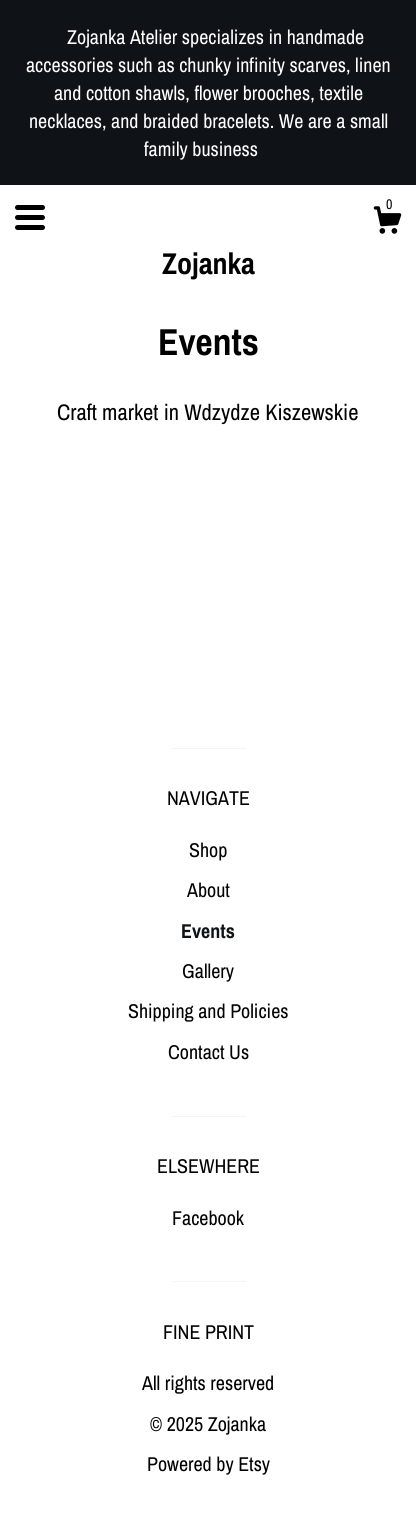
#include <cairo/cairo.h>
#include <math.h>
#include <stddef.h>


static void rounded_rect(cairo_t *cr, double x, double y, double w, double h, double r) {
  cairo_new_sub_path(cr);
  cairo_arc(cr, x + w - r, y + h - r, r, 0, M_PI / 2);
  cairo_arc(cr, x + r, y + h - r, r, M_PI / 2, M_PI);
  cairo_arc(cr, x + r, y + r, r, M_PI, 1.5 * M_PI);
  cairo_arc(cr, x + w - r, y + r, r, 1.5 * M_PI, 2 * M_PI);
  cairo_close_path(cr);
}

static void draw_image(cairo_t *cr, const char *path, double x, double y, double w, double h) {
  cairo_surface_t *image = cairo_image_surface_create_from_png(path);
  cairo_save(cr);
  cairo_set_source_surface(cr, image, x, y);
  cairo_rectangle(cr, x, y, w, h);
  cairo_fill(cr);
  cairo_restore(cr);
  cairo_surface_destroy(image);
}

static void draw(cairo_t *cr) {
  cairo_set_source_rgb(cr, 1, 1, 1);
  cairo_paint(cr);
  cairo_set_source_rgb(cr, 15 / 255.0, 18 / 255.0, 23 / 255.0);
  cairo_rectangle(cr, 0, 0, 416, 185);
  cairo_fill(cr);
  cairo_set_source_rgb(cr, 0, 0, 0);
  rounded_rect(cr, 15, 205, 30, 5, 2.5);
  cairo_fill(cr);
  rounded_rect(cr, 15, 215, 30, 5, 2.5);
  cairo_fill(cr);
  rounded_rect(cr, 15, 225, 30, 5, 2.5);
  cairo_fill(cr);
  draw_image(cr, "images/1.png", 373, 206, 29, 28);
  cairo_set_source_rgb(cr, 245 / 255.0, 245 / 255.0, 245 / 255.0);
  cairo_rectangle(cr, 171, 748, 75, 1);
  cairo_fill(cr);
  cairo_rectangle(cr, 171, 1116, 75, 1);
  cairo_fill(cr);
  cairo_rectangle(cr, 171, 1281, 75, 1);
  cairo_fill(cr);
  cairo_select_font_face(cr, "Archivo Narrow", CAIRO_FONT_SLANT_NORMAL, CAIRO_FONT_WEIGHT_NORMAL);
  cairo_set_font_size(cr, 20);
  cairo_set_source_rgb(cr, 1, 1, 1);
  cairo_move_to(cr, 67, 44);
  cairo_show_text(cr, "Zojanka Atelier specializes in handmade");
  cairo_move_to(cr, 26, 72);
  cairo_show_text(cr, "accessories such as chunky infinity scarves, linen");
  cairo_move_to(cr, 54, 100);
  cairo_show_text(cr, "and cotton shawls, flower brooches, textile");
  cairo_move_to(cr, 29, 128);
  cairo_show_text(cr, "necklaces, and braided bracelets. We are a small");
  cairo_move_to(cr, 144, 156);
  cairo_show_text(cr, "family business");
  cairo_set_font_size(cr, 14);
  cairo_set_source_rgb(cr, 0, 0, 0);
  cairo_move_to(cr, 386, 209);
  cairo_show_text(cr, "0");
  cairo_select_font_face(cr, "Archivo Narrow", CAIRO_FONT_SLANT_NORMAL, CAIRO_FONT_WEIGHT_BOLD);
  cairo_set_font_size(cr, 30);
  cairo_move_to(cr, 162, 274);
  cairo_show_text(cr, "Zojanka");
  cairo_set_font_size(cr, 37.5);
  cairo_move_to(cr, 158, 355);
  cairo_show_text(cr, "Events");
  cairo_select_font_face(cr, "Archivo Narrow", CAIRO_FONT_SLANT_NORMAL, CAIRO_FONT_WEIGHT_NORMAL);
  cairo_set_font_size(cr, 22.5);
  cairo_move_to(cr, 57, 420);
  cairo_show_text(cr, "Craft market in Wdzydze Kiszewskie");
  cairo_set_font_size(cr, 20);
  cairo_move_to(cr, 167, 805);
  cairo_show_text(cr, "NAVIGATE");
  cairo_move_to(cr, 189, 857);
  cairo_show_text(cr, "Shop");
  cairo_move_to(cr, 187, 897);
  cairo_show_text(cr, "About");
  cairo_select_font_face(cr, "Archivo Narrow", CAIRO_FONT_SLANT_NORMAL, CAIRO_FONT_WEIGHT_BOLD);
  cairo_set_source_rgb(cr, 15 / 255.0, 18 / 255.0, 23 / 255.0);
  cairo_move_to(cr, 181, 938);
  cairo_show_text(cr, "Events");
  cairo_select_font_face(cr, "Archivo Narrow", CAIRO_FONT_SLANT_NORMAL, CAIRO_FONT_WEIGHT_NORMAL);
  cairo_set_source_rgb(cr, 0, 0, 0);
  cairo_move_to(cr, 182, 978);
  cairo_show_text(cr, "Gallery");
  cairo_move_to(cr, 128, 1018);
  cairo_show_text(cr, "Shipping and Policies");
  cairo_move_to(cr, 168, 1059);
  cairo_show_text(cr, "Contact Us");
  cairo_move_to(cr, 157, 1173);
  cairo_show_text(cr, "ELSEWHERE");
  cairo_move_to(cr, 172, 1225);
  cairo_show_text(cr, "Facebook");
  cairo_move_to(cr, 163, 1339);
  cairo_show_text(cr, "FINE PRINT");
  cairo_move_to(cr, 142, 1390);
  cairo_show_text(cr, "All rights reserved");
  cairo_move_to(cr, 150, 1431);
  cairo_show_text(cr, "© 2025 Zojanka");
  cairo_move_to(cr, 147, 1471);
  cairo_show_text(cr, "Powered by Etsy");
}

int main(void) {
  cairo_surface_t *surface = cairo_image_surface_create(CAIRO_FORMAT_RGB24, 416, 1515);
  cairo_t *cr = cairo_create(surface);
  cairo_font_options_t *options = cairo_font_options_create();
  cairo_font_options_set_hint_metrics(options, CAIRO_HINT_METRICS_OFF);
  cairo_font_options_set_hint_style(options, CAIRO_HINT_STYLE_NONE);
  cairo_set_font_options(cr, options);
  cairo_set_miter_limit(cr, 4);
  draw(cr);
  cairo_surface_write_to_png(surface, "out.png");
  cairo_font_options_destroy(options);
  cairo_destroy(cr);
  cairo_surface_destroy(surface);
  return 0;
}
